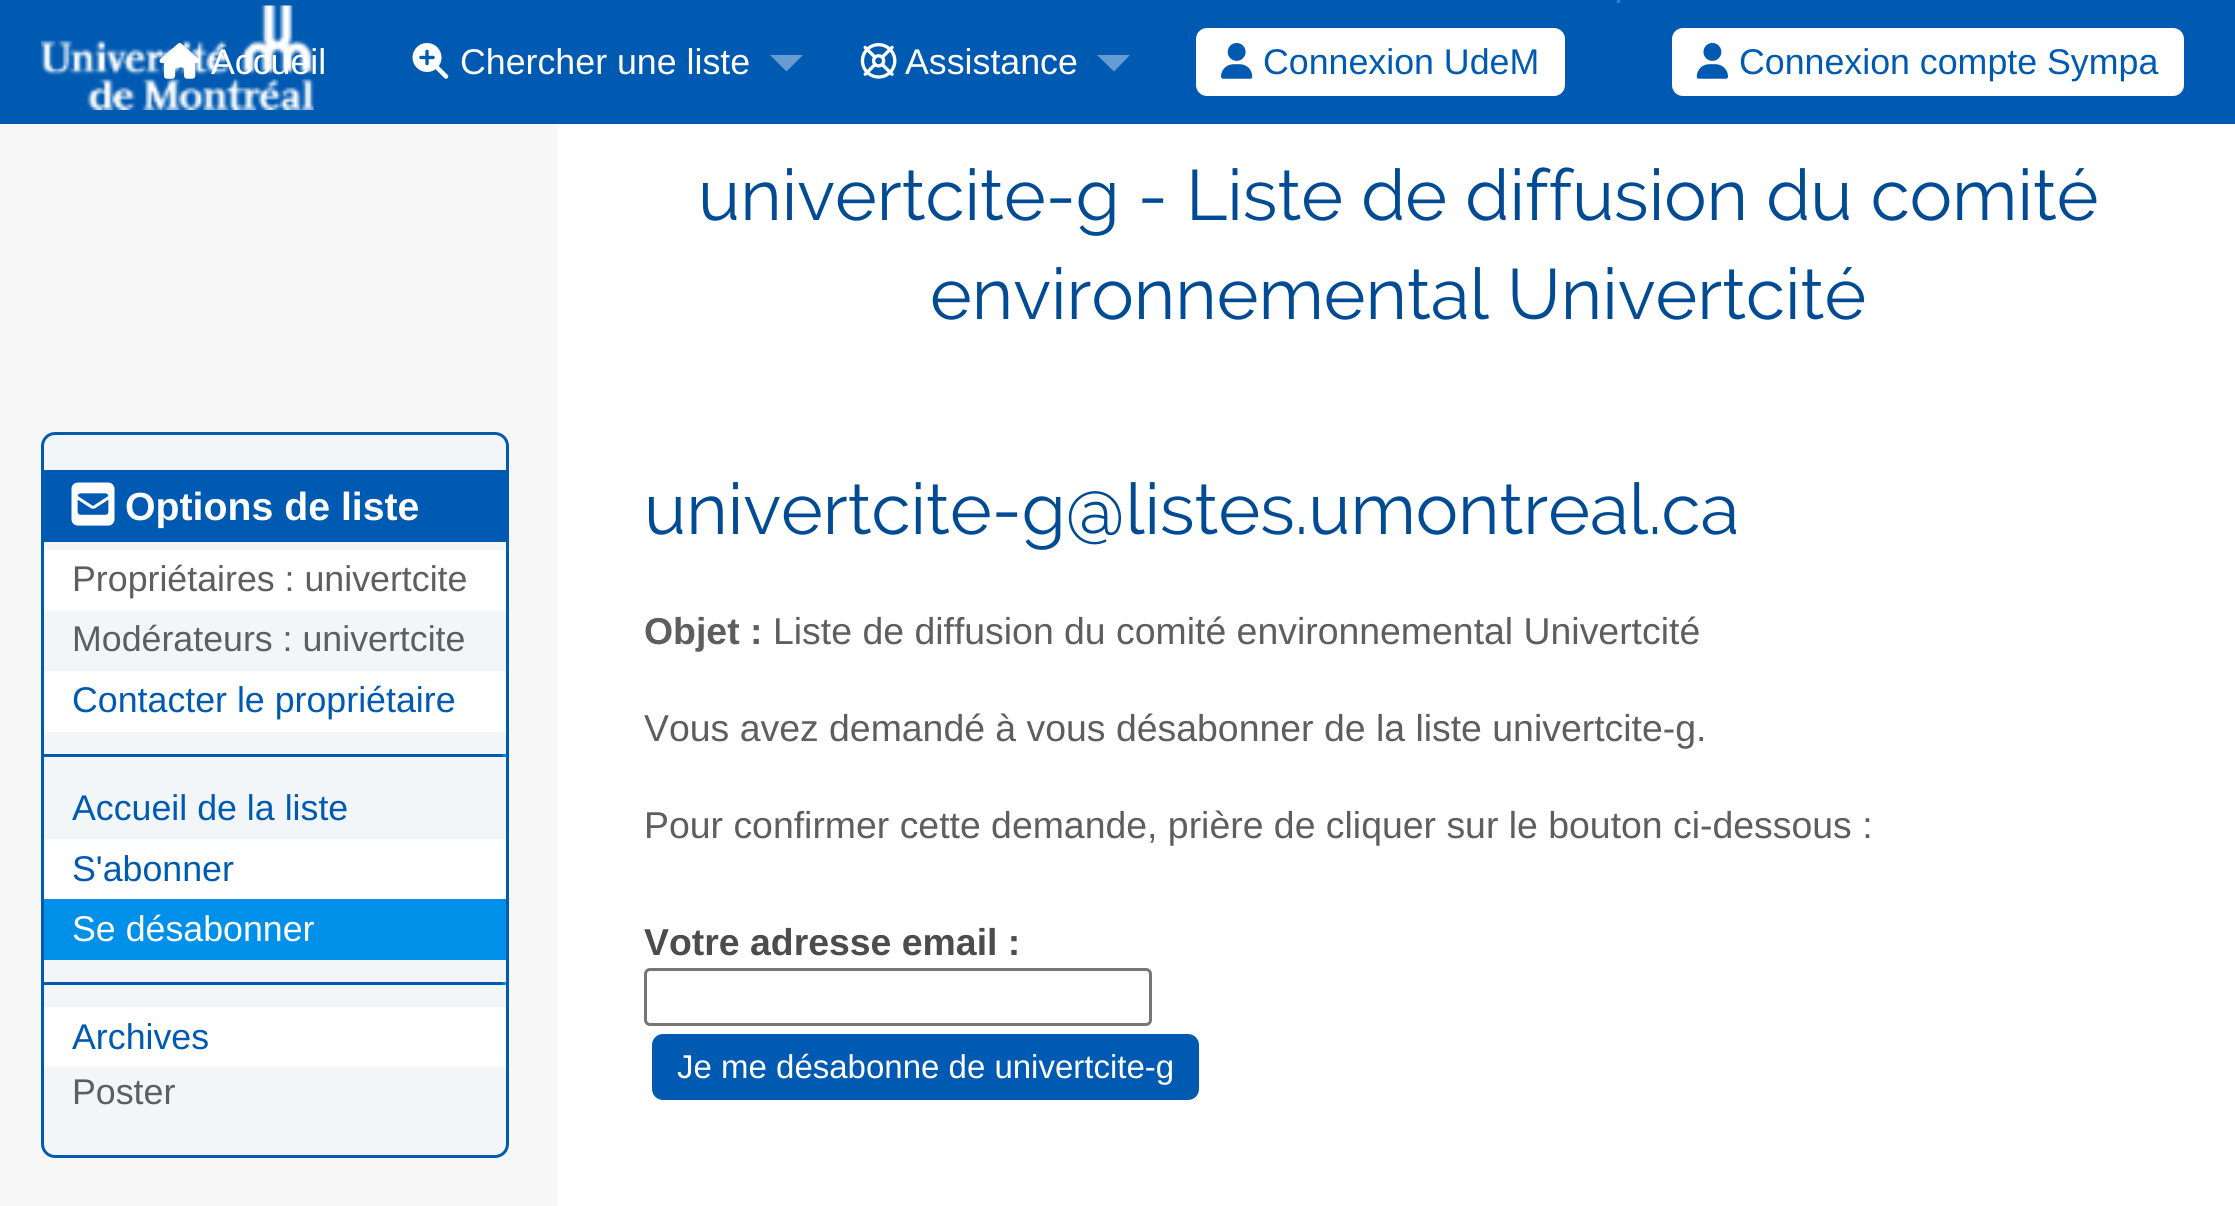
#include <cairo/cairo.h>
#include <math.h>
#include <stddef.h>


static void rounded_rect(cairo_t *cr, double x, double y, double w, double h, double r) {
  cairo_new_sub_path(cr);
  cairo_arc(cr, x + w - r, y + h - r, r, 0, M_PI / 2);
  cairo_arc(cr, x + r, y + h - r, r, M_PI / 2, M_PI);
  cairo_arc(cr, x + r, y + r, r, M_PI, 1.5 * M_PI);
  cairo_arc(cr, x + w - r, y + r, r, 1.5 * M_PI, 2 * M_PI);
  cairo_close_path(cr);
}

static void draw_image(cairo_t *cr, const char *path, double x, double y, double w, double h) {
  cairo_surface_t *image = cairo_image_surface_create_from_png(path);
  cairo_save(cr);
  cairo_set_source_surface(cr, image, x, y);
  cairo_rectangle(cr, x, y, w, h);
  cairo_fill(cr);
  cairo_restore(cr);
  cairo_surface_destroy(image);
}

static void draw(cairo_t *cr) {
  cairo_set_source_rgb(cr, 247 / 255.0, 247 / 255.0, 247 / 255.0);
  cairo_paint(cr);
  cairo_set_source_rgb(cr, 0, 90 / 255.0, 178 / 255.0);
  cairo_rectangle(cr, 0, 0, 2235, 124);
  cairo_fill(cr);
  cairo_set_source_rgb(cr, 0, 144 / 255.0, 233 / 255.0);
  cairo_rectangle(cr, 1617, 0, 3, 3);
  cairo_fill(cr);
  draw_image(cr, "images/2.png", 159, 43, 40, 36);
  draw_image(cr, "images/3.png", 412, 43, 37, 36);
  cairo_set_source_rgb(cr, 102 / 255.0, 156 / 255.0, 209 / 255.0);
  cairo_new_path(cr);
  cairo_move_to(cr, 770, 55);
  cairo_line_to(cr, 803, 55);
  cairo_line_to(cr, 786.5, 71.5);
  cairo_close_path(cr);
  cairo_fill(cr);
  draw_image(cr, "images/4.png", 860, 43, 37, 36);
  cairo_new_path(cr);
  cairo_move_to(cr, 1097, 55);
  cairo_line_to(cr, 1130, 55);
  cairo_line_to(cr, 1114, 71.5);
  cairo_close_path(cr);
  cairo_fill(cr);
  cairo_set_source_rgb(cr, 1, 1, 1);
  rounded_rect(cr, 1196, 28, 369, 68, 11);
  cairo_fill(cr);
  draw_image(cr, "images/5.png", 1221, 43, 32, 36);
  rounded_rect(cr, 1672, 28, 512, 68, 11);
  cairo_fill(cr);
  draw_image(cr, "images/6.png", 1696, 43, 32, 36);
  cairo_rectangle(cr, 558, 124, 1677, 1082);
  cairo_fill(cr);
  cairo_set_source_rgb(cr, 242 / 255.0, 246 / 255.0, 249 / 255.0);
  rounded_rect(cr, 42.5, 433.5, 465, 723, 12.5);
  cairo_fill_preserve(cr);
  cairo_set_source_rgb(cr, 0, 90 / 255.0, 178 / 255.0);
  cairo_set_line_width(cr, 3);
  cairo_stroke(cr);
  cairo_rectangle(cr, 44, 470, 462, 72);
  cairo_fill(cr);
  draw_image(cr, "images/7.png", 71, 482, 44, 44);
  cairo_set_source_rgb(cr, 1, 1, 1);
  cairo_rectangle(cr, 44, 550, 462, 61);
  cairo_fill(cr);
  cairo_rectangle(cr, 44, 671, 462, 61);
  cairo_fill(cr);
  cairo_set_source_rgb(cr, 0, 90 / 255.0, 178 / 255.0);
  cairo_rectangle(cr, 44, 754, 462, 3);
  cairo_fill(cr);
  cairo_set_source_rgb(cr, 0, 144 / 255.0, 233 / 255.0);
  cairo_rectangle(cr, 503, 754, 3, 3);
  cairo_fill(cr);
  cairo_set_source_rgb(cr, 1, 1, 1);
  cairo_rectangle(cr, 44, 839, 462, 60);
  cairo_fill(cr);
  cairo_set_source_rgb(cr, 0, 144 / 255.0, 233 / 255.0);
  cairo_rectangle(cr, 44, 899, 462, 61);
  cairo_fill(cr);
  cairo_set_source_rgb(cr, 0, 90 / 255.0, 178 / 255.0);
  cairo_rectangle(cr, 44, 982, 462, 3);
  cairo_fill(cr);
  cairo_set_source_rgb(cr, 0, 144 / 255.0, 233 / 255.0);
  cairo_rectangle(cr, 503, 982, 3, 3);
  cairo_fill(cr);
  cairo_set_source_rgb(cr, 1, 1, 1);
  cairo_rectangle(cr, 44, 1007, 462, 60);
  cairo_fill(cr);
  rounded_rect(cr, 645.5, 969.5, 505, 55, 4.5);
  cairo_set_source_rgb(cr, 118 / 255.0, 118 / 255.0, 118 / 255.0);
  cairo_stroke(cr);
  cairo_set_source_rgb(cr, 0, 90 / 255.0, 178 / 255.0);
  rounded_rect(cr, 652, 1034, 547, 66, 11);
  cairo_fill(cr);
  cairo_select_font_face(cr, "Liberation Sans", CAIRO_FONT_SLANT_NORMAL, CAIRO_FONT_WEIGHT_NORMAL);
  cairo_set_font_size(cr, 35.75);
  cairo_set_source_rgb(cr, 1, 1, 1);
  cairo_move_to(cr, 211, 74);
  cairo_show_text(cr, "Accueil");
  draw_image(cr, "images/1.png", 41, 5, 273, 105);
  cairo_move_to(cr, 460, 74);
  cairo_show_text(cr, "Chercher une liste");
  cairo_move_to(cr, 905, 74);
  cairo_show_text(cr, "Assistance");
  cairo_set_source_rgb(cr, 0, 90 / 255.0, 178 / 255.0);
  cairo_move_to(cr, 1263, 74);
  cairo_show_text(cr, "Connexion UdeM");
  cairo_move_to(cr, 1739, 74);
  cairo_show_text(cr, "Connexion compte Sympa");
  cairo_select_font_face(cr, "Raleway", CAIRO_FONT_SLANT_NORMAL, CAIRO_FONT_WEIGHT_NORMAL);
  cairo_set_font_size(cr, 71.1);
  cairo_set_source_rgb(cr, 0, 75 / 255.0, 148 / 255.0);
  cairo_move_to(cr, 698, 220);
  cairo_show_text(cr, "univertcite-g - Liste de diffusion du comité");
  cairo_move_to(cr, 930, 319);
  cairo_show_text(cr, "environnemental Univertcité");
  cairo_select_font_face(cr, "Liberation Sans", CAIRO_FONT_SLANT_NORMAL, CAIRO_FONT_WEIGHT_BOLD);
  cairo_set_font_size(cr, 39.25);
  cairo_set_source_rgb(cr, 1, 1, 1);
  cairo_move_to(cr, 125, 520);
  cairo_show_text(cr, "Options de liste");
  cairo_select_font_face(cr, "Liberation Sans", CAIRO_FONT_SLANT_NORMAL, CAIRO_FONT_WEIGHT_NORMAL);
  cairo_set_font_size(cr, 35.75);
  cairo_set_source_rgb(cr, 94 / 255.0, 94 / 255.0, 94 / 255.0);
  cairo_move_to(cr, 72, 591);
  cairo_show_text(cr, "Propriétaires : univertcite");
  cairo_move_to(cr, 72, 651);
  cairo_show_text(cr, "Modérateurs : univertcite");
  cairo_set_source_rgb(cr, 0, 90 / 255.0, 178 / 255.0);
  cairo_move_to(cr, 72, 712);
  cairo_show_text(cr, "Contacter le propriétaire");
  cairo_move_to(cr, 72, 820);
  cairo_show_text(cr, "Accueil de la liste");
  cairo_move_to(cr, 72, 881);
  cairo_show_text(cr, "S'abonner");
  cairo_set_source_rgb(cr, 1, 1, 1);
  cairo_move_to(cr, 72, 941);
  cairo_show_text(cr, "Se désabonner");
  cairo_set_source_rgb(cr, 0, 90 / 255.0, 178 / 255.0);
  cairo_move_to(cr, 72, 1049);
  cairo_show_text(cr, "Archives");
  cairo_set_source_rgb(cr, 94 / 255.0, 94 / 255.0, 94 / 255.0);
  cairo_move_to(cr, 72, 1104);
  cairo_show_text(cr, "Poster");
  cairo_select_font_face(cr, "Raleway", CAIRO_FONT_SLANT_NORMAL, CAIRO_FONT_WEIGHT_NORMAL);
  cairo_set_font_size(cr, 71.1);
  cairo_set_source_rgb(cr, 0, 75 / 255.0, 148 / 255.0);
  cairo_move_to(cr, 644, 534);
  cairo_show_text(cr, "univertcite-g@listes.umontreal.ca");
  cairo_select_font_face(cr, "Liberation Sans", CAIRO_FONT_SLANT_NORMAL, CAIRO_FONT_WEIGHT_BOLD);
  cairo_set_font_size(cr, 37.4);
  cairo_set_source_rgb(cr, 94 / 255.0, 94 / 255.0, 94 / 255.0);
  cairo_move_to(cr, 644, 644);
  cairo_show_text(cr, "Objet :");
  cairo_select_font_face(cr, "Liberation Sans", CAIRO_FONT_SLANT_NORMAL, CAIRO_FONT_WEIGHT_NORMAL);
  cairo_move_to(cr, 773, 644);
  cairo_show_text(cr, "Liste de diffusion du comité environnemental Univertcité");
  cairo_move_to(cr, 644, 741);
  cairo_show_text(cr, "Vous avez demandé à vous désabonner de la liste univertcite-g.");
  cairo_move_to(cr, 644, 838);
  cairo_show_text(cr, "Pour confirmer cette demande, prière de cliquer sur le bouton ci-dessous :");
  cairo_select_font_face(cr, "Liberation Sans", CAIRO_FONT_SLANT_NORMAL, CAIRO_FONT_WEIGHT_BOLD);
  cairo_set_source_rgb(cr, 76 / 255.0, 76 / 255.0, 76 / 255.0);
  cairo_move_to(cr, 644, 955);
  cairo_show_text(cr, "Votre adresse email :");
  cairo_select_font_face(cr, "Liberation Sans", CAIRO_FONT_SLANT_NORMAL, CAIRO_FONT_WEIGHT_NORMAL);
  cairo_set_font_size(cr, 33);
  cairo_set_source_rgb(cr, 1, 1, 1);
  cairo_move_to(cr, 677, 1078);
  cairo_show_text(cr, "Je me désabonne de univertcite-g");
}

int main(void) {
  cairo_surface_t *surface = cairo_image_surface_create(CAIRO_FORMAT_RGB24, 2235, 1206);
  cairo_t *cr = cairo_create(surface);
  cairo_font_options_t *options = cairo_font_options_create();
  cairo_font_options_set_hint_metrics(options, CAIRO_HINT_METRICS_OFF);
  cairo_font_options_set_hint_style(options, CAIRO_HINT_STYLE_NONE);
  cairo_set_font_options(cr, options);
  cairo_set_miter_limit(cr, 4);
  draw(cr);
  cairo_surface_write_to_png(surface, "out.png");
  cairo_font_options_destroy(options);
  cairo_destroy(cr);
  cairo_surface_destroy(surface);
  return 0;
}
